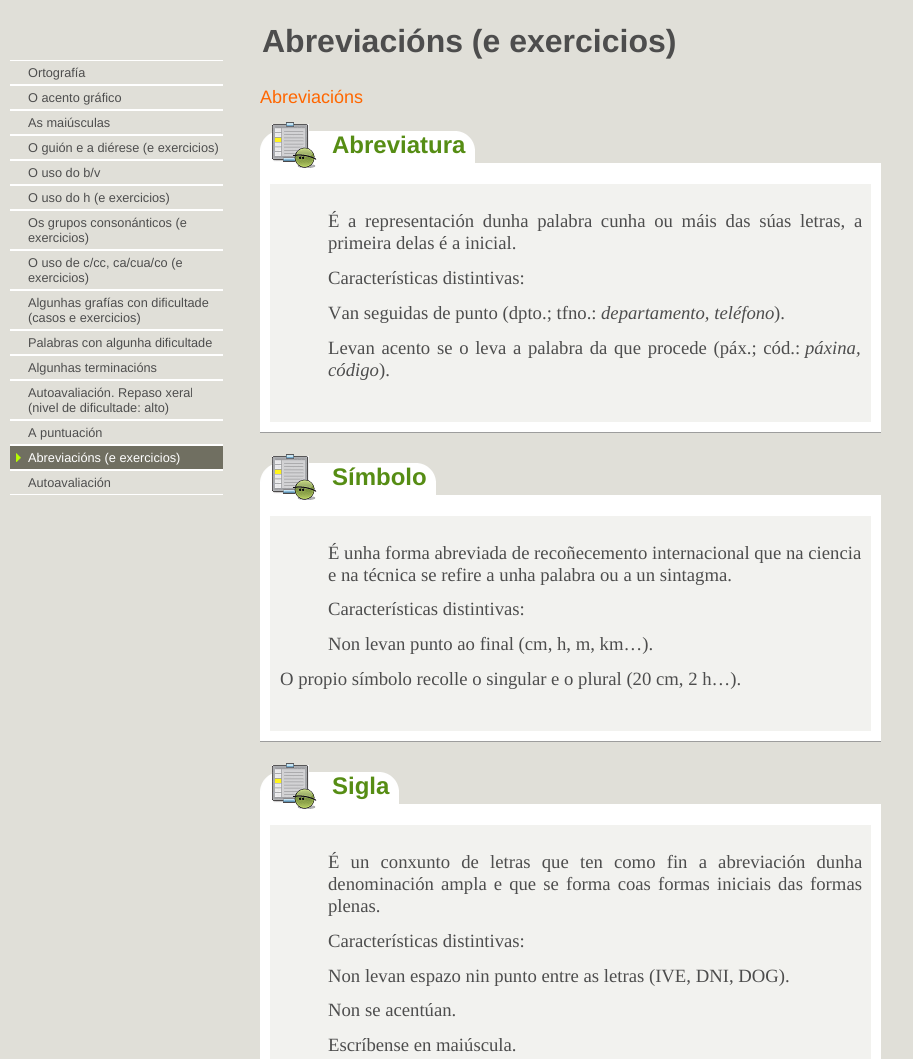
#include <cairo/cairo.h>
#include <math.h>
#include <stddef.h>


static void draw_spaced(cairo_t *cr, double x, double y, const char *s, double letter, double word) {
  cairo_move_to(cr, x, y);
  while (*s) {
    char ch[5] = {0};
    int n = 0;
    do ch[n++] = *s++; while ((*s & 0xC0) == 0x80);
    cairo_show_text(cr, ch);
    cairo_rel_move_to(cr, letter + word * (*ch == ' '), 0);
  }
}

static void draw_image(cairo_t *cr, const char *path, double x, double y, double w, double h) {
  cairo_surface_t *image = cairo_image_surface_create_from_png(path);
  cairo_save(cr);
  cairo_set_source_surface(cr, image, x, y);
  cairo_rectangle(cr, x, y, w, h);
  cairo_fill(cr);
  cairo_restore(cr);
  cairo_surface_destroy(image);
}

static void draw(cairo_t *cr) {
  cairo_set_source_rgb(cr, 224 / 255.0, 223 / 255.0, 216 / 255.0);
  cairo_paint(cr);
  cairo_set_source_rgb(cr, 1, 1, 1);
  cairo_rectangle(cr, 10, 60, 213, 1);
  cairo_fill(cr);
  cairo_rectangle(cr, 10, 84, 213, 2);
  cairo_fill(cr);
  cairo_rectangle(cr, 10, 109, 213, 2);
  cairo_fill(cr);
  cairo_rectangle(cr, 10, 134, 213, 2);
  cairo_fill(cr);
  cairo_rectangle(cr, 10, 159, 213, 2);
  cairo_fill(cr);
  cairo_rectangle(cr, 10, 184, 213, 2);
  cairo_fill(cr);
  cairo_rectangle(cr, 10, 209, 213, 2);
  cairo_fill(cr);
  cairo_rectangle(cr, 10, 249, 213, 2);
  cairo_fill(cr);
  cairo_rectangle(cr, 10, 289, 213, 2);
  cairo_fill(cr);
  cairo_rectangle(cr, 10, 329, 213, 2);
  cairo_fill(cr);
  cairo_rectangle(cr, 10, 354, 213, 2);
  cairo_fill(cr);
  cairo_rectangle(cr, 10, 379, 213, 2);
  cairo_fill(cr);
  cairo_rectangle(cr, 10, 419, 213, 2);
  cairo_fill(cr);
  cairo_rectangle(cr, 10, 444, 213, 2);
  cairo_fill(cr);
  cairo_set_source_rgb(cr, 112 / 255.0, 111 / 255.0, 97 / 255.0);
  cairo_rectangle(cr, 10, 446, 213, 23);
  cairo_fill(cr);
  draw_image(cr, "images/1.png", 16, 453, 5, 9);
  cairo_set_source_rgb(cr, 1, 1, 1);
  cairo_rectangle(cr, 10, 469, 213, 2);
  cairo_fill(cr);
  cairo_rectangle(cr, 10, 494, 213, 1);
  cairo_fill(cr);
  cairo_rectangle(cr, 260, 163, 621, 269);
  cairo_fill(cr);
  draw_image(cr, "images/2.png", 260, 131, 621, 32);
  cairo_set_source_rgb(cr, 157 / 255.0, 157 / 255.0, 157 / 255.0);
  cairo_rectangle(cr, 260, 432, 621, 1);
  cairo_fill(cr);
  draw_image(cr, "images/3.png", 272, 122, 45, 46);
  cairo_set_source_rgb(cr, 1, 1, 1);
  cairo_rectangle(cr, 334, 131, 141, 32);
  cairo_fill(cr);
  draw_image(cr, "images/4.png", 457, 131, 18, 18);
  cairo_set_source_rgb(cr, 242 / 255.0, 242 / 255.0, 239 / 255.0);
  cairo_rectangle(cr, 270, 184, 601, 238);
  cairo_fill(cr);
  cairo_set_source_rgb(cr, 1, 1, 1);
  cairo_rectangle(cr, 260, 495, 621, 246);
  cairo_fill(cr);
  draw_image(cr, "images/2.png", 260, 463, 621, 32);
  cairo_set_source_rgb(cr, 157 / 255.0, 157 / 255.0, 157 / 255.0);
  cairo_rectangle(cr, 260, 741, 621, 1);
  cairo_fill(cr);
  draw_image(cr, "images/3.png", 272, 454, 45, 46);
  cairo_set_source_rgb(cr, 1, 1, 1);
  cairo_rectangle(cr, 334, 463, 102, 32);
  cairo_fill(cr);
  draw_image(cr, "images/4.png", 418, 463, 18, 18);
  cairo_set_source_rgb(cr, 242 / 255.0, 242 / 255.0, 239 / 255.0);
  cairo_rectangle(cr, 270, 516, 601, 215);
  cairo_fill(cr);
  cairo_set_source_rgb(cr, 1, 1, 1);
  cairo_rectangle(cr, 260, 804, 621, 255);
  cairo_fill(cr);
  draw_image(cr, "images/2.png", 260, 772, 621, 32);
  draw_image(cr, "images/3.png", 272, 763, 45, 46);
  cairo_rectangle(cr, 334, 772, 65, 32);
  cairo_fill(cr);
  draw_image(cr, "images/4.png", 381, 772, 18, 18);
  cairo_set_source_rgb(cr, 242 / 255.0, 242 / 255.0, 239 / 255.0);
  cairo_rectangle(cr, 270, 825, 601, 234);
  cairo_fill(cr);
  cairo_select_font_face(cr, "Liberation Sans", CAIRO_FONT_SLANT_NORMAL, CAIRO_FONT_WEIGHT_NORMAL);
  cairo_set_font_size(cr, 12.75);
  cairo_set_source_rgb(cr, 77 / 255.0, 77 / 255.0, 77 / 255.0);
  cairo_move_to(cr, 28, 77);
  cairo_show_text(cr, "Ortografía");
  cairo_move_to(cr, 28, 102);
  cairo_show_text(cr, "O acento gráfico");
  cairo_move_to(cr, 28, 127);
  cairo_show_text(cr, "As maiúsculas");
  cairo_move_to(cr, 28, 152);
  cairo_show_text(cr, "O guión e a diérese (e exercicios)");
  cairo_move_to(cr, 28, 177);
  cairo_show_text(cr, "O uso do b/v");
  cairo_move_to(cr, 28, 202);
  cairo_show_text(cr, "O uso do h (e exercicios)");
  cairo_move_to(cr, 28, 227);
  cairo_show_text(cr, "Os grupos consonánticos (e");
  cairo_move_to(cr, 28, 242);
  cairo_show_text(cr, "exercicios)");
  cairo_move_to(cr, 28, 267);
  cairo_show_text(cr, "O uso de c/cc, ca/cua/co (e");
  cairo_move_to(cr, 28, 282);
  cairo_show_text(cr, "exercicios)");
  cairo_move_to(cr, 28, 307);
  cairo_show_text(cr, "Algunhas grafías con dificultade");
  cairo_move_to(cr, 28, 322);
  cairo_show_text(cr, "(casos e exercicios)");
  cairo_move_to(cr, 28, 347);
  cairo_show_text(cr, "Palabras con algunha dificultade");
  cairo_move_to(cr, 28, 372);
  cairo_show_text(cr, "Algunhas terminacións");
  cairo_move_to(cr, 28, 397);
  cairo_show_text(cr, "Autoavaliación. Repaso xeral");
  cairo_move_to(cr, 28, 412);
  cairo_show_text(cr, "(nivel de dificultade: alto)");
  cairo_move_to(cr, 28, 437);
  cairo_show_text(cr, "A puntuación");
  cairo_set_source_rgb(cr, 1, 1, 1);
  cairo_move_to(cr, 28, 462);
  cairo_show_text(cr, "Abreviacións (e exercicios)");
  cairo_set_source_rgb(cr, 77 / 255.0, 77 / 255.0, 77 / 255.0);
  cairo_move_to(cr, 28, 487);
  cairo_show_text(cr, "Autoavaliación");
  cairo_select_font_face(cr, "Liberation Sans", CAIRO_FONT_SLANT_NORMAL, CAIRO_FONT_WEIGHT_BOLD);
  cairo_set_font_size(cr, 32);
  cairo_move_to(cr, 262, 52);
  cairo_show_text(cr, "Abreviacións (e exercicios)");
  cairo_select_font_face(cr, "Liberation Sans", CAIRO_FONT_SLANT_NORMAL, CAIRO_FONT_WEIGHT_NORMAL);
  cairo_set_font_size(cr, 18);
  cairo_set_source_rgb(cr, 1, 102 / 255.0, 0);
  cairo_move_to(cr, 260, 103);
  cairo_show_text(cr, "Abreviacións");
  cairo_select_font_face(cr, "Liberation Sans", CAIRO_FONT_SLANT_NORMAL, CAIRO_FONT_WEIGHT_BOLD);
  cairo_set_font_size(cr, 24);
  cairo_set_source_rgb(cr, 86 / 255.0, 141 / 255.0, 20 / 255.0);
  cairo_move_to(cr, 332, 153);
  cairo_show_text(cr, "Abreviatura");
  cairo_select_font_face(cr, "Liberation Serif", CAIRO_FONT_SLANT_NORMAL, CAIRO_FONT_WEIGHT_NORMAL);
  cairo_set_font_size(cr, 18.7);
  cairo_set_source_rgb(cr, 77 / 255.0, 77 / 255.0, 77 / 255.0);
  draw_spaced(cr, 328, 227, "É a representación dunha palabra cunha ou máis das súas letras, a", 0, 4);
  cairo_move_to(cr, 328, 249);
  cairo_show_text(cr, "primeira delas é a inicial.");
  cairo_move_to(cr, 328, 284);
  cairo_show_text(cr, "Características distintivas:");
  cairo_move_to(cr, 328, 319);
  cairo_show_text(cr, "Van seguidas de punto (dpto.; tfno.:");
  cairo_select_font_face(cr, "Liberation Serif", CAIRO_FONT_SLANT_ITALIC, CAIRO_FONT_WEIGHT_NORMAL);
  cairo_move_to(cr, 601, 319);
  cairo_show_text(cr, "departamento, teléfono");
  cairo_select_font_face(cr, "Liberation Serif", CAIRO_FONT_SLANT_NORMAL, CAIRO_FONT_WEIGHT_NORMAL);
  cairo_move_to(cr, 774, 319);
  cairo_show_text(cr, ").");
  draw_spaced(cr, 328, 354, "Levan acento se o leva a palabra da que procede (páx.; cód.:", 0, 2);
  cairo_select_font_face(cr, "Liberation Serif", CAIRO_FONT_SLANT_ITALIC, CAIRO_FONT_WEIGHT_NORMAL);
  cairo_move_to(cr, 805, 354);
  cairo_show_text(cr, "páxina,");
  cairo_move_to(cr, 328, 376);
  cairo_show_text(cr, "código");
  cairo_select_font_face(cr, "Liberation Serif", CAIRO_FONT_SLANT_NORMAL, CAIRO_FONT_WEIGHT_NORMAL);
  cairo_move_to(cr, 379, 376);
  cairo_show_text(cr, ").");
  cairo_select_font_face(cr, "Liberation Sans", CAIRO_FONT_SLANT_NORMAL, CAIRO_FONT_WEIGHT_BOLD);
  cairo_set_font_size(cr, 24);
  cairo_set_source_rgb(cr, 86 / 255.0, 141 / 255.0, 20 / 255.0);
  cairo_move_to(cr, 332, 485);
  cairo_show_text(cr, "Símbolo");
  cairo_select_font_face(cr, "Liberation Serif", CAIRO_FONT_SLANT_NORMAL, CAIRO_FONT_WEIGHT_NORMAL);
  cairo_set_font_size(cr, 18.7);
  cairo_set_source_rgb(cr, 77 / 255.0, 77 / 255.0, 77 / 255.0);
  cairo_move_to(cr, 328, 559);
  cairo_show_text(cr, "É unha forma abreviada de recoñecemento internacional que na ciencia");
  cairo_move_to(cr, 328, 581);
  cairo_show_text(cr, "e na técnica se refire a unha palabra ou a un sintagma.");
  cairo_move_to(cr, 328, 615);
  cairo_show_text(cr, "Características distintivas:");
  cairo_move_to(cr, 328, 650);
  cairo_show_text(cr, "Non levan punto ao final (cm, h, m, km…).");
  cairo_move_to(cr, 280, 685);
  cairo_show_text(cr, "O propio símbolo recolle o singular e o plural (20 cm, 2 h…).");
  cairo_select_font_face(cr, "Liberation Sans", CAIRO_FONT_SLANT_NORMAL, CAIRO_FONT_WEIGHT_BOLD);
  cairo_set_font_size(cr, 24);
  cairo_set_source_rgb(cr, 86 / 255.0, 141 / 255.0, 20 / 255.0);
  cairo_move_to(cr, 332, 794);
  cairo_show_text(cr, "Sigla");
  cairo_select_font_face(cr, "Liberation Serif", CAIRO_FONT_SLANT_NORMAL, CAIRO_FONT_WEIGHT_NORMAL);
  cairo_set_font_size(cr, 18.7);
  cairo_set_source_rgb(cr, 77 / 255.0, 77 / 255.0, 77 / 255.0);
  draw_spaced(cr, 328, 868, "É un conxunto de letras que ten como fin a abreviación dunha", 0, 6.5);
  draw_spaced(cr, 328, 890, "denominación ampla e que se forma coas formas iniciais das formas", 0, 2.4);
  cairo_move_to(cr, 328, 912);
  cairo_show_text(cr, "plenas.");
  cairo_move_to(cr, 328, 947);
  cairo_show_text(cr, "Características distintivas:");
  cairo_move_to(cr, 328, 982);
  cairo_show_text(cr, "Non levan espazo nin punto entre as letras (IVE, DNI, DOG).");
  cairo_move_to(cr, 328, 1016);
  cairo_show_text(cr, "Non se acentúan.");
  cairo_move_to(cr, 328, 1051);
  cairo_show_text(cr, "Escríbense en maiúscula.");
}

int main(void) {
  cairo_surface_t *surface = cairo_image_surface_create(CAIRO_FORMAT_RGB24, 913, 1059);
  cairo_t *cr = cairo_create(surface);
  cairo_font_options_t *options = cairo_font_options_create();
  cairo_font_options_set_hint_metrics(options, CAIRO_HINT_METRICS_OFF);
  cairo_font_options_set_hint_style(options, CAIRO_HINT_STYLE_NONE);
  cairo_set_font_options(cr, options);
  cairo_set_miter_limit(cr, 4);
  draw(cr);
  cairo_surface_write_to_png(surface, "out.png");
  cairo_font_options_destroy(options);
  cairo_destroy(cr);
  cairo_surface_destroy(surface);
  return 0;
}
